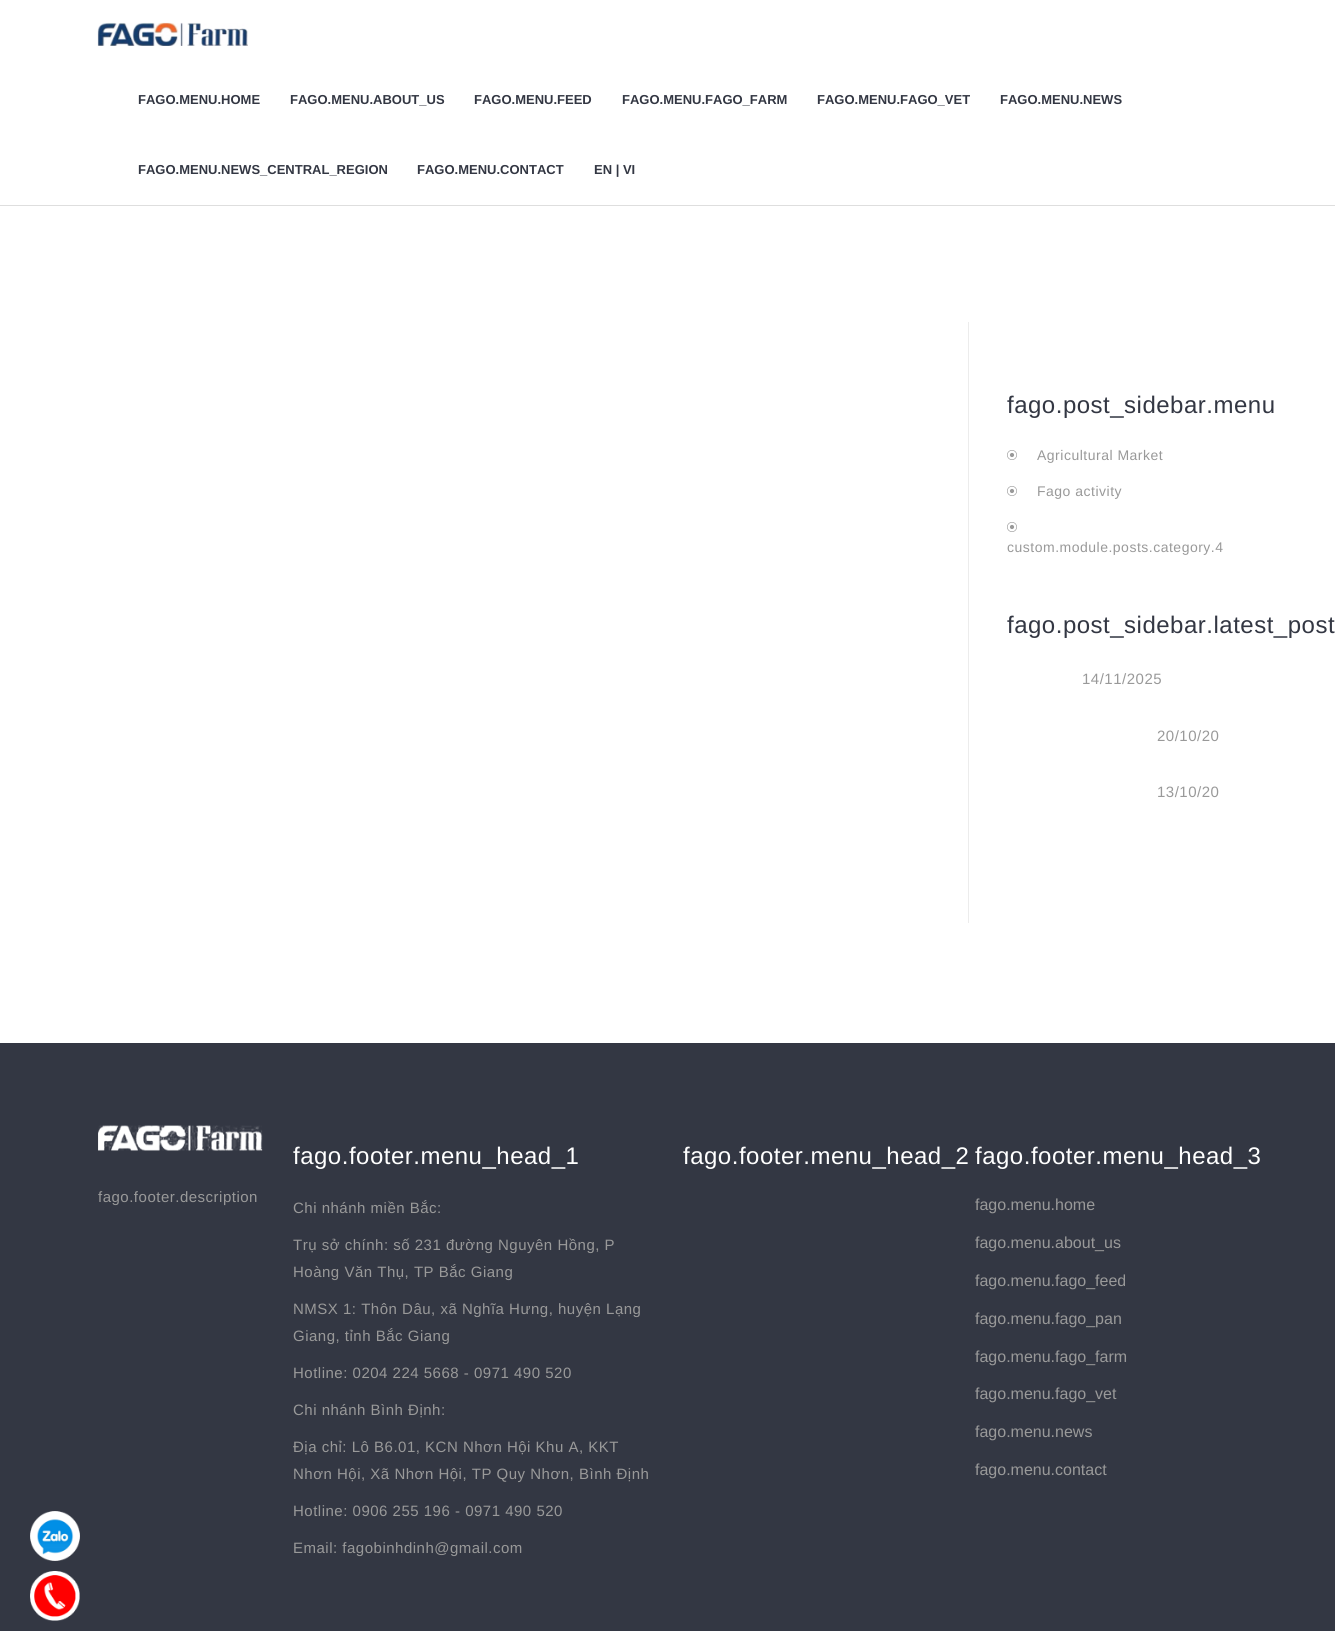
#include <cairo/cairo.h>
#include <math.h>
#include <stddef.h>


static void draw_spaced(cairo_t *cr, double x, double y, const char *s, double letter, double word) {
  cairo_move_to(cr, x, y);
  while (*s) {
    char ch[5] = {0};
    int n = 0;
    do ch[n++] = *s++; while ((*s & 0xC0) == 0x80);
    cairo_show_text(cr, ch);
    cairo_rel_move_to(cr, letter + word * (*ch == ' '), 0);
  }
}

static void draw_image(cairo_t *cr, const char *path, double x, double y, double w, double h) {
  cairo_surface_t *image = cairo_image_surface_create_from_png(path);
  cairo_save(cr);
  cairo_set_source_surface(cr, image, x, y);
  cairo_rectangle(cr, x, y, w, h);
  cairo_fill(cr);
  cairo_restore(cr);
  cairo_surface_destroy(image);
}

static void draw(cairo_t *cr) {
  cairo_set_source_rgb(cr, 1, 1, 1);
  cairo_paint(cr);
  cairo_set_source_rgb(cr, 222 / 255.0, 222 / 255.0, 222 / 255.0);
  cairo_rectangle(cr, 0, 205, 1335, 1);
  cairo_fill(cr);
  draw_image(cr, "images/1.png", 97, 22, 151, 24);
  cairo_set_source_rgb(cr, 236 / 255.0, 236 / 255.0, 236 / 255.0);
  cairo_rectangle(cr, 968, 322, 1, 601);
  cairo_fill(cr);
  draw_image(cr, "images/2.png", 1007, 450, 10, 10);
  draw_image(cr, "images/2.png", 1007, 486, 10, 10);
  draw_image(cr, "images/2.png", 1007, 522, 10, 10);
  cairo_set_source_rgb(cr, 51 / 255.0, 55 / 255.0, 67 / 255.0);
  cairo_rectangle(cr, 0, 1043, 1335, 588);
  cairo_fill(cr);
  draw_image(cr, "images/3.png", 30, 1511, 50, 50);
  draw_image(cr, "images/4.png", 30, 1571, 50, 50);
  draw_image(cr, "images/5.png", 98, 1125, 165, 26);
  cairo_select_font_face(cr, "Liberation Sans", CAIRO_FONT_SLANT_NORMAL, CAIRO_FONT_WEIGHT_BOLD);
  cairo_set_font_size(cr, 13);
  cairo_move_to(cr, 138, 104);
  cairo_show_text(cr, "FAGO.MENU.HOME");
  cairo_move_to(cr, 290, 104);
  cairo_show_text(cr, "FAGO.MENU.ABOUT_US");
  cairo_move_to(cr, 474, 104);
  cairo_show_text(cr, "FAGO.MENU.FEED");
  cairo_move_to(cr, 622, 104);
  cairo_show_text(cr, "FAGO.MENU.FAGO_FARM");
  cairo_move_to(cr, 817, 104);
  cairo_show_text(cr, "FAGO.MENU.FAGO_VET");
  cairo_move_to(cr, 1000, 104);
  cairo_show_text(cr, "FAGO.MENU.NEWS");
  cairo_move_to(cr, 138, 174);
  cairo_show_text(cr, "FAGO.MENU.NEWS_CENTRAL_REGION");
  cairo_move_to(cr, 417, 174);
  cairo_show_text(cr, "FAGO.MENU.CONTACT");
  cairo_move_to(cr, 594, 174);
  cairo_show_text(cr, "EN | VI");
  cairo_select_font_face(cr, "Liberation Sans", CAIRO_FONT_SLANT_NORMAL, CAIRO_FONT_WEIGHT_NORMAL);
  cairo_set_font_size(cr, 24);
  draw_spaced(cr, 1007, 413, "fago.post_sidebar.menu", 0.5, 0);
  cairo_set_font_size(cr, 14);
  cairo_set_source_rgb(cr, 153 / 255.0, 153 / 255.0, 153 / 255.0);
  draw_spaced(cr, 1037, 460, "Agricultural Market", 0.5, 0);
  draw_spaced(cr, 1037, 496, "Fago activity", 0.5, 0);
  draw_spaced(cr, 1007, 552, "custom.module.posts.category.4", 0.5, 0);
  cairo_set_font_size(cr, 24);
  cairo_set_source_rgb(cr, 51 / 255.0, 55 / 255.0, 67 / 255.0);
  draw_spaced(cr, 1007, 633, "fago.post_sidebar.latest_post", 0.5, 0);
  cairo_set_font_size(cr, 15);
  cairo_set_source_rgb(cr, 153 / 255.0, 153 / 255.0, 153 / 255.0);
  draw_spaced(cr, 1082, 684, "14/11/2025", 0.5, 0);
  draw_spaced(cr, 1157, 741, "20/10/20", 0.5, 0);
  draw_spaced(cr, 1157, 797, "13/10/20", 0.5, 0);
  draw_spaced(cr, 98, 1202, "fago.footer.description", 0.5, 0);
  cairo_set_font_size(cr, 24);
  cairo_set_source_rgb(cr, 1, 1, 1);
  draw_spaced(cr, 293, 1164, "fago.footer.menu_head_1", 0.5, 0);
  cairo_set_font_size(cr, 15);
  cairo_set_source_rgb(cr, 153 / 255.0, 153 / 255.0, 153 / 255.0);
  draw_spaced(cr, 293, 1213, "Chi nhánh miền Bắc:", 0.5, 0);
  draw_spaced(cr, 293, 1250, "Trụ sở chính: số 231 đường Nguyên Hồng, P", 0.5, 0);
  draw_spaced(cr, 293, 1277, "Hoàng Văn Thụ, TP Bắc Giang", 0.5, 0);
  draw_spaced(cr, 293, 1314, "NMSX 1: Thôn Dâu, xã Nghĩa Hưng, huyện Lạng", 0.5, 0);
  draw_spaced(cr, 293, 1341, "Giang, tỉnh Bắc Giang", 0.5, 0);
  draw_spaced(cr, 293, 1378, "Hotline: 0204 224 5668 - 0971 490 520", 0.5, 0);
  draw_spaced(cr, 293, 1415, "Chi nhánh Bình Định:", 0.5, 0);
  draw_spaced(cr, 293, 1452, "Địa chỉ: Lô B6.01, KCN Nhơn Hội Khu A, KKT", 0.5, 0);
  draw_spaced(cr, 293, 1479, "Nhơn Hội, Xã Nhơn Hội, TP Quy Nhơn, Bình Định", 0.5, 0);
  draw_spaced(cr, 293, 1516, "Hotline: 0906 255 196 - 0971 490 520", 0.5, 0);
  draw_spaced(cr, 293, 1553, "Email: fagobinhdinh@gmail.com", 0.5, 0);
  cairo_set_font_size(cr, 24);
  cairo_set_source_rgb(cr, 1, 1, 1);
  draw_spaced(cr, 683, 1164, "fago.footer.menu_head_2", 0.5, 0);
  draw_spaced(cr, 975, 1164, "fago.footer.menu_head_3", 0.5, 0);
  cairo_set_font_size(cr, 16);
  cairo_set_source_rgb(cr, 153 / 255.0, 153 / 255.0, 153 / 255.0);
  cairo_move_to(cr, 975, 1210);
  cairo_show_text(cr, "fago.menu.home");
  cairo_move_to(cr, 975, 1248);
  cairo_show_text(cr, "fago.menu.about_us");
  cairo_move_to(cr, 975, 1286);
  cairo_show_text(cr, "fago.menu.fago_feed");
  cairo_move_to(cr, 975, 1324);
  cairo_show_text(cr, "fago.menu.fago_pan");
  cairo_move_to(cr, 975, 1362);
  cairo_show_text(cr, "fago.menu.fago_farm");
  cairo_move_to(cr, 975, 1399);
  cairo_show_text(cr, "fago.menu.fago_vet");
  cairo_move_to(cr, 975, 1437);
  cairo_show_text(cr, "fago.menu.news");
  cairo_move_to(cr, 975, 1475);
  cairo_show_text(cr, "fago.menu.contact");
}

int main(void) {
  cairo_surface_t *surface = cairo_image_surface_create(CAIRO_FORMAT_RGB24, 1335, 1631);
  cairo_t *cr = cairo_create(surface);
  cairo_font_options_t *options = cairo_font_options_create();
  cairo_font_options_set_hint_metrics(options, CAIRO_HINT_METRICS_OFF);
  cairo_font_options_set_hint_style(options, CAIRO_HINT_STYLE_NONE);
  cairo_set_font_options(cr, options);
  cairo_set_miter_limit(cr, 4);
  draw(cr);
  cairo_surface_write_to_png(surface, "out.png");
  cairo_font_options_destroy(options);
  cairo_destroy(cr);
  cairo_surface_destroy(surface);
  return 0;
}
